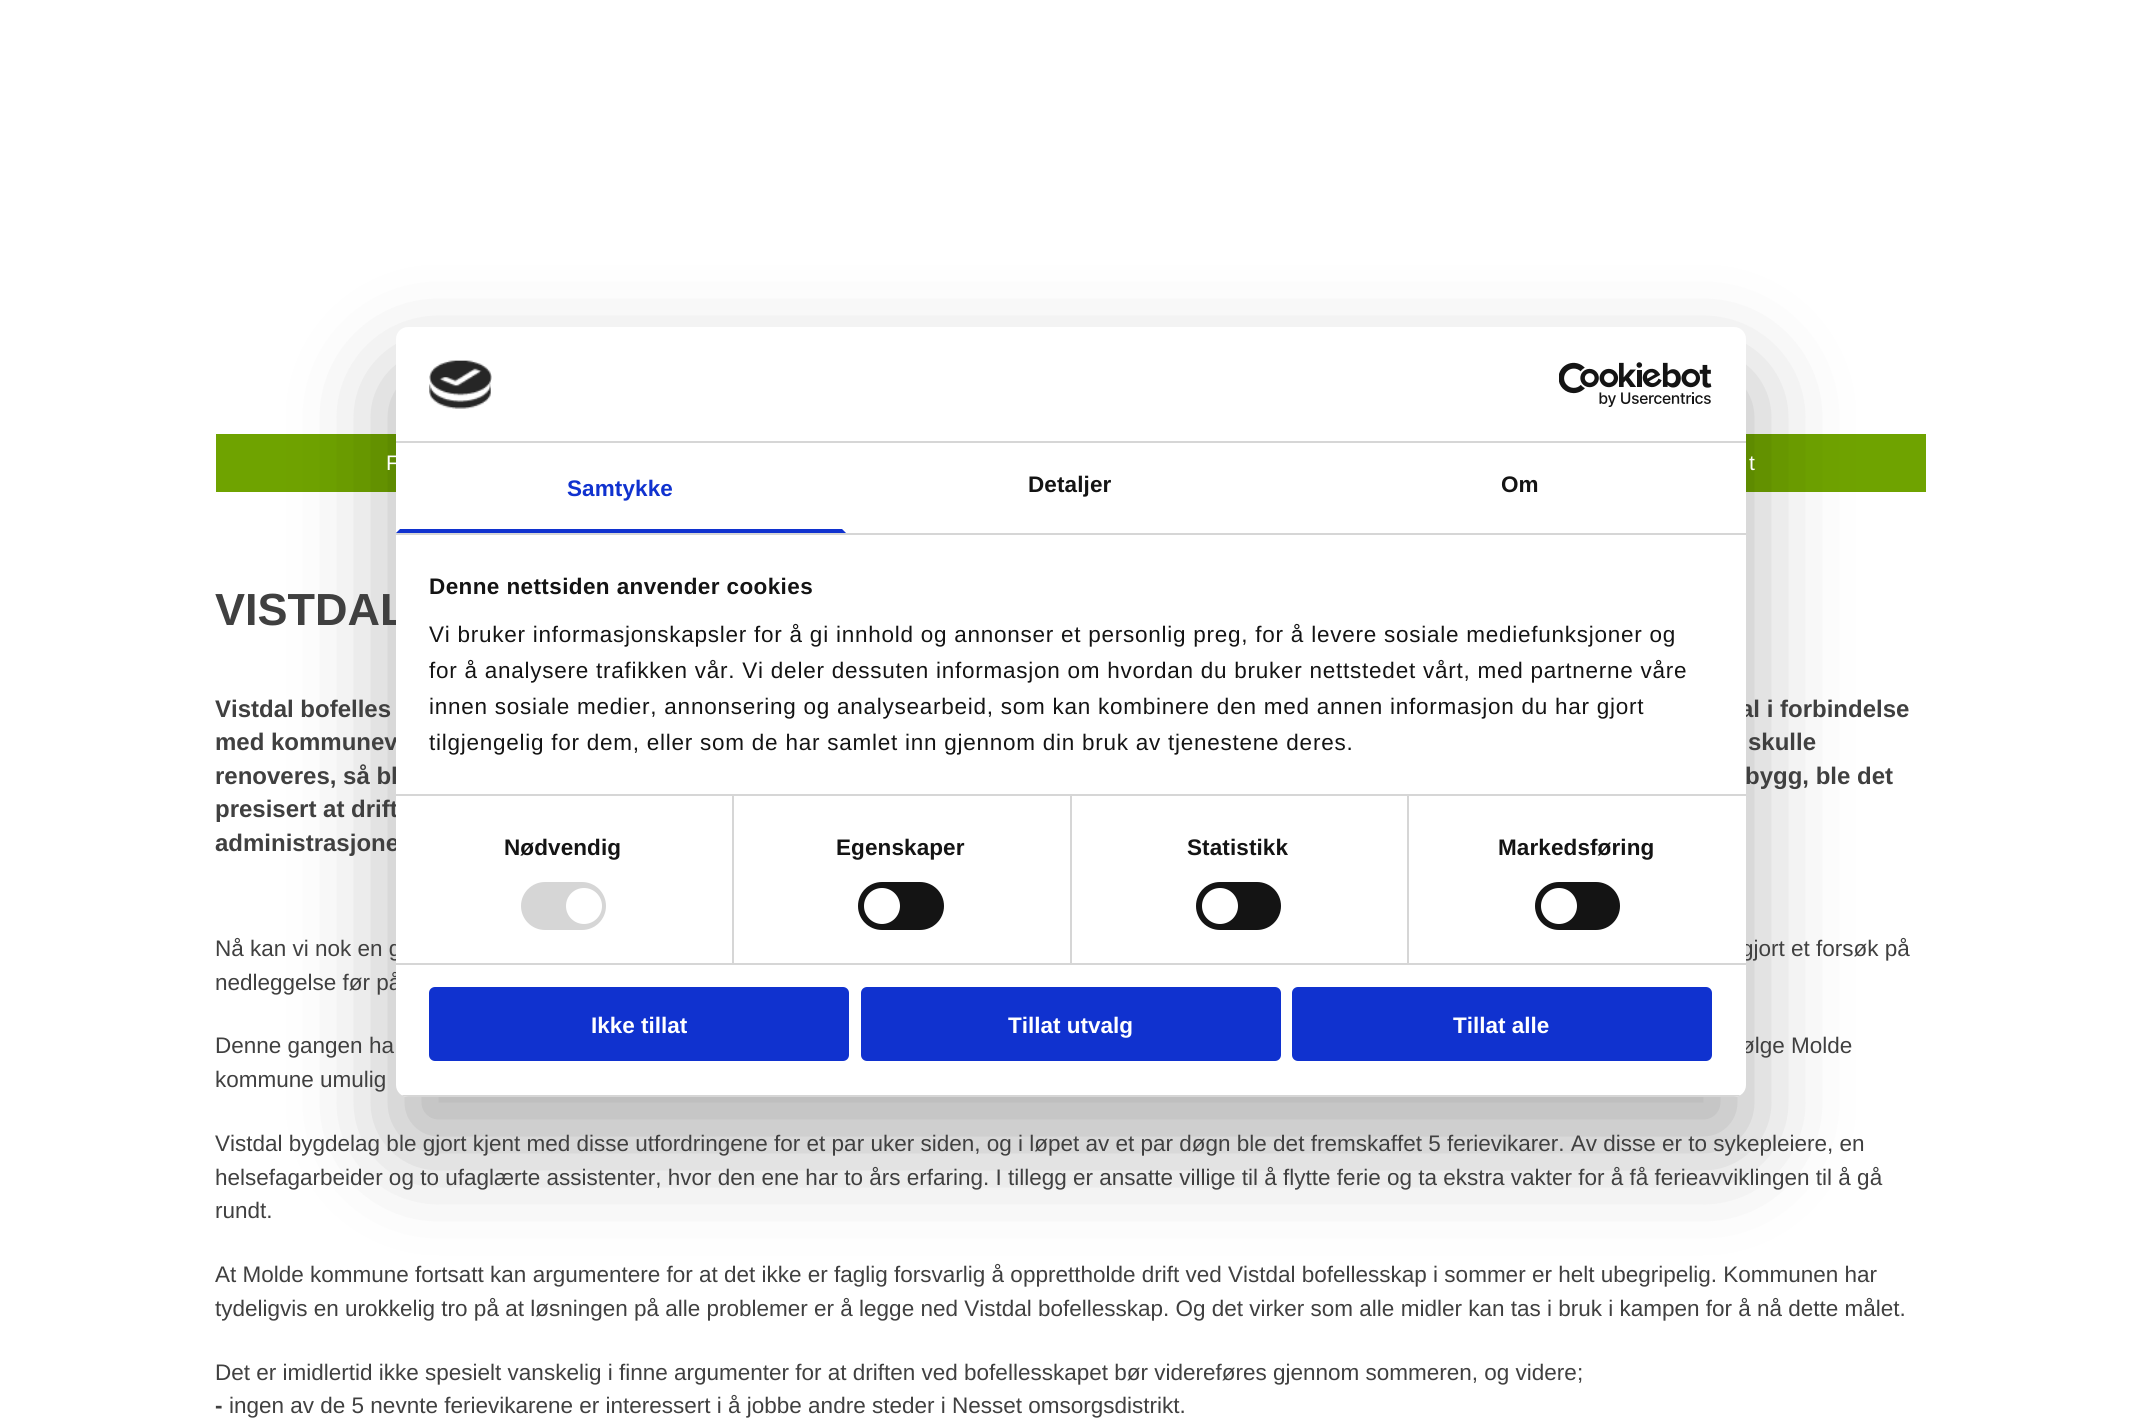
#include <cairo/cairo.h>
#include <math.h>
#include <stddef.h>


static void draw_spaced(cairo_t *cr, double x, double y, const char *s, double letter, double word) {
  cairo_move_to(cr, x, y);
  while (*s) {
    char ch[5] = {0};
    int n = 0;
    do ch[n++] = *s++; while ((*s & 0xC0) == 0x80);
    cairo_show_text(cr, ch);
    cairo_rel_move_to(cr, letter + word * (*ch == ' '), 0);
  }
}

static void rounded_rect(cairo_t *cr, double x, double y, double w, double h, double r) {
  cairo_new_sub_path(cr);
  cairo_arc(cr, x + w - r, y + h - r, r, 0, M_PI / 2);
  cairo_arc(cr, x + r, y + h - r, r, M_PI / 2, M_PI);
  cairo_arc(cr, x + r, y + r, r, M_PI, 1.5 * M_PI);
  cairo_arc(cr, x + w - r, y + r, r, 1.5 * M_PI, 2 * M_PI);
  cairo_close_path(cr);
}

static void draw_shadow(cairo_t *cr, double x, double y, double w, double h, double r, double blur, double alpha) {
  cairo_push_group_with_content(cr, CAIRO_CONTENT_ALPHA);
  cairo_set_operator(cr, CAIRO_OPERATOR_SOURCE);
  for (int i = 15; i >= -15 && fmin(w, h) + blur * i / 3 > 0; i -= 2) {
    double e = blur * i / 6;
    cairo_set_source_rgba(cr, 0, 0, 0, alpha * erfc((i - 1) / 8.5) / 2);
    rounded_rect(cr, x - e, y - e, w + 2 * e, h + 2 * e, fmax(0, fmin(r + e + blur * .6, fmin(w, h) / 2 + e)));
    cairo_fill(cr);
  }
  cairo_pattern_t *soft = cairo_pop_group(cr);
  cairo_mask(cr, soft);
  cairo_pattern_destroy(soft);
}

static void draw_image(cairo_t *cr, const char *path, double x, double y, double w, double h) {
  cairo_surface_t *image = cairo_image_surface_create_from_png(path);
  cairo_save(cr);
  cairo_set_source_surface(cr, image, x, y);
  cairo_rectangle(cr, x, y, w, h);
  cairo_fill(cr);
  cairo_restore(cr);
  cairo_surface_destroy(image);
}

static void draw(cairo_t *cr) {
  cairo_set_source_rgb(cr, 1, 1, 1);
  cairo_paint(cr);
  cairo_set_source_rgb(cr, 111 / 255.0, 163 / 255.0, 0);
  cairo_rectangle(cr, 216, 434, 1710, 58);
  cairo_fill(cr);
  cairo_set_source_rgb(cr, 0, 0, 0);
  draw_shadow(cr, 396, 375, 1350, 770, 12, 51, 0.3);
  cairo_select_font_face(cr, "Liberation Sans", CAIRO_FONT_SLANT_NORMAL, CAIRO_FONT_WEIGHT_NORMAL);
  cairo_set_font_size(cr, 21);
  cairo_set_source_rgb(cr, 1, 1, 1);
  cairo_move_to(cr, 386, 470);
  cairo_show_text(cr, "F");
  cairo_move_to(cr, 1749, 470);
  cairo_show_text(cr, "t");
  cairo_select_font_face(cr, "Liberation Sans", CAIRO_FONT_SLANT_NORMAL, CAIRO_FONT_WEIGHT_BOLD);
  cairo_set_font_size(cr, 45);
  cairo_set_source_rgb(cr, 64 / 255.0, 64 / 255.0, 64 / 255.0);
  cairo_move_to(cr, 215, 625);
  cairo_show_text(cr, "VISTDAL");
  cairo_set_font_size(cr, 24);
  cairo_move_to(cr, 215, 717);
  cairo_show_text(cr, "Vistdal bofelles");
  cairo_move_to(cr, 1740, 717);
  cairo_show_text(cr, "al i forbindelse");
  cairo_move_to(cr, 215, 750);
  cairo_show_text(cr, "med kommunev");
  cairo_move_to(cr, 1748, 750);
  cairo_show_text(cr, "skulle");
  cairo_move_to(cr, 215, 784);
  cairo_show_text(cr, "renoveres, så bl");
  cairo_move_to(cr, 1745, 784);
  cairo_show_text(cr, "bygg, ble det");
  cairo_move_to(cr, 215, 817);
  cairo_show_text(cr, "presisert at drift");
  cairo_move_to(cr, 215, 851);
  cairo_show_text(cr, "administrasjone");
  cairo_select_font_face(cr, "Liberation Sans", CAIRO_FONT_SLANT_NORMAL, CAIRO_FONT_WEIGHT_NORMAL);
  cairo_set_font_size(cr, 22.5);
  cairo_move_to(cr, 215, 956);
  cairo_show_text(cr, "Nå kan vi nok en g");
  cairo_move_to(cr, 1741, 956);
  cairo_show_text(cr, "gjort et forsøk på");
  cairo_move_to(cr, 215, 990);
  cairo_show_text(cr, "nedleggelse før på");
  cairo_move_to(cr, 215, 1053);
  cairo_show_text(cr, "Denne gangen ha");
  cairo_move_to(cr, 1741, 1053);
  cairo_show_text(cr, "ølge Molde");
  cairo_move_to(cr, 215, 1087);
  cairo_show_text(cr, "kommune umulig");
  cairo_move_to(cr, 215, 1151);
  cairo_show_text(cr, "Vistdal bygdelag ble gjort kjent med disse utfordringene for et par uker siden, og i løpet av et par døgn ble det fremskaffet 5 ferievikarer. Av disse er to sykepleiere, en");
  cairo_move_to(cr, 215, 1185);
  cairo_show_text(cr, "helsefagarbeider og to ufaglærte assistenter, hvor den ene har to års erfaring. I tillegg er ansatte villige til å flytte ferie og ta ekstra vakter for å få ferieavviklingen til å gå");
  cairo_move_to(cr, 215, 1218);
  cairo_show_text(cr, "rundt.");
  cairo_move_to(cr, 215, 1282);
  cairo_show_text(cr, "At Molde kommune fortsatt kan argumentere for at det ikke er faglig forsvarlig å opprettholde drift ved Vistdal bofellesskap i sommer er helt ubegripelig. Kommunen har");
  cairo_move_to(cr, 215, 1316);
  cairo_show_text(cr, "tydeligvis en urokkelig tro på at løsningen på alle problemer er å legge ned Vistdal bofellesskap. Og det virker som alle midler kan tas i bruk i kampen for å nå dette målet.");
  cairo_move_to(cr, 215, 1380);
  cairo_show_text(cr, "Det er imidlertid ikke spesielt vanskelig i finne argumenter for at driften ved bofellesskapet bør videreføres gjennom sommeren, og videre;");
  cairo_select_font_face(cr, "Liberation Sans", CAIRO_FONT_SLANT_NORMAL, CAIRO_FONT_WEIGHT_BOLD);
  cairo_move_to(cr, 215, 1413);
  cairo_show_text(cr, "-");
  cairo_select_font_face(cr, "Liberation Sans", CAIRO_FONT_SLANT_NORMAL, CAIRO_FONT_WEIGHT_NORMAL);
  cairo_move_to(cr, 229, 1413);
  cairo_show_text(cr, "ingen av de 5 nevnte ferievikarene er interessert i å jobbe andre steder i Nesset omsorgsdistrikt.");
  cairo_set_source_rgb(cr, 1, 1, 1);
  rounded_rect(cr, 396, 327, 1350, 770, 12);
  cairo_fill(cr);
  cairo_set_source_rgb(cr, 214 / 255.0, 214 / 255.0, 214 / 255.0);
  cairo_rectangle(cr, 396, 441, 1350, 2);
  cairo_fill(cr);
  draw_image(cr, "images/1.png", 429, 360, 63, 49);
  draw_image(cr, "images/2.png", 1559, 362, 153, 45);
  cairo_rectangle(cr, 396, 533, 1350, 2);
  cairo_fill(cr);
  cairo_set_source_rgb(cr, 16 / 255.0, 50 / 255.0, 207 / 255.0);
  cairo_new_path(cr);
  cairo_move_to(cr, 846, 533);
  cairo_line_to(cr, 396, 533);
  cairo_line_to(cr, 400, 529);
  cairo_line_to(cr, 842, 529);
  cairo_close_path(cr);
  cairo_fill(cr);
  cairo_select_font_face(cr, "Liberation Sans", CAIRO_FONT_SLANT_NORMAL, CAIRO_FONT_WEIGHT_BOLD);
  draw_spaced(cr, 567, 496, "Samtykke", 0.1, 0);
  cairo_set_source_rgb(cr, 20 / 255.0, 20 / 255.0, 20 / 255.0);
  draw_spaced(cr, 1028, 492, "Detaljer", 0.1, 0);
  draw_spaced(cr, 1501, 492, "Om", 0.1, 0);
  draw_spaced(cr, 429, 594, "Denne nettsiden anvender cookies", 0.4, 0);
  cairo_select_font_face(cr, "Liberation Sans", CAIRO_FONT_SLANT_NORMAL, CAIRO_FONT_WEIGHT_NORMAL);
  draw_spaced(cr, 429, 642, "Vi bruker informasjonskapsler for å gi innhold og annonser et personlig preg, for å levere sosiale mediefunksjoner og", 0.75, 0);
  draw_spaced(cr, 429, 678, "for å analysere trafikken vår. Vi deler dessuten informasjon om hvordan du bruker nettstedet vårt, med partnerne våre", 0.75, 0);
  draw_spaced(cr, 429, 714, "innen sosiale medier, annonsering og analysearbeid, som kan kombinere den med annen informasjon du har gjort", 0.75, 0);
  draw_spaced(cr, 429, 750, "tilgjengelig for dem, eller som de har samlet inn gjennom din bruk av tjenestene deres.", 0.75, 0);
  cairo_set_source_rgb(cr, 214 / 255.0, 214 / 255.0, 214 / 255.0);
  cairo_rectangle(cr, 396, 963, 1350, 2);
  cairo_fill(cr);
  cairo_rectangle(cr, 732, 795, 2, 168);
  cairo_fill(cr);
  cairo_select_font_face(cr, "Liberation Sans", CAIRO_FONT_SLANT_NORMAL, CAIRO_FONT_WEIGHT_BOLD);
  cairo_set_source_rgb(cr, 20 / 255.0, 20 / 255.0, 20 / 255.0);
  draw_spaced(cr, 504, 855, "Nødvendig", 0.1, 0);
  cairo_set_source_rgb(cr, 214 / 255.0, 214 / 255.0, 214 / 255.0);
  rounded_rect(cr, 521, 882, 85, 48, 24);
  cairo_fill(cr);
  cairo_set_source_rgb(cr, 1, 1, 1);
  cairo_arc(cr, 584, 906, 18, 0, 2 * M_PI);
  cairo_fill(cr);
  cairo_set_source_rgb(cr, 214 / 255.0, 214 / 255.0, 214 / 255.0);
  cairo_rectangle(cr, 1070, 795, 2, 168);
  cairo_fill(cr);
  cairo_set_source_rgb(cr, 20 / 255.0, 20 / 255.0, 20 / 255.0);
  draw_spaced(cr, 836, 855, "Egenskaper", 0.1, 0);
  rounded_rect(cr, 858, 882, 86, 48, 24);
  cairo_fill(cr);
  cairo_set_source_rgb(cr, 1, 1, 1);
  cairo_arc(cr, 882, 906, 18, 0, 2 * M_PI);
  cairo_fill(cr);
  cairo_set_source_rgb(cr, 214 / 255.0, 214 / 255.0, 214 / 255.0);
  cairo_rectangle(cr, 1407, 795, 2, 168);
  cairo_fill(cr);
  cairo_rectangle(cr, 396, 794, 1350, 2);
  cairo_fill(cr);
  cairo_set_source_rgb(cr, 20 / 255.0, 20 / 255.0, 20 / 255.0);
  draw_spaced(cr, 1187, 855, "Statistikk", 0.1, 0);
  rounded_rect(cr, 1196, 882, 85, 48, 24);
  cairo_fill(cr);
  cairo_set_source_rgb(cr, 1, 1, 1);
  cairo_arc(cr, 1220, 906, 18, 0, 2 * M_PI);
  cairo_fill(cr);
  cairo_set_source_rgb(cr, 20 / 255.0, 20 / 255.0, 20 / 255.0);
  draw_spaced(cr, 1498, 855, "Markedsføring", 0.1, 0);
  rounded_rect(cr, 1535, 882, 85, 48, 24);
  cairo_fill(cr);
  cairo_set_source_rgb(cr, 1, 1, 1);
  cairo_arc(cr, 1559, 906, 18, 0, 2 * M_PI);
  cairo_fill(cr);
  cairo_save(cr);
  rounded_rect(cr, 396, 327, 1350, 770, 12);
  cairo_clip(cr);
  cairo_set_source_rgb(cr, 214 / 255.0, 214 / 255.0, 214 / 255.0);
  cairo_rectangle(cr, 396, 1095, 1350, 2);
  cairo_fill(cr);
  cairo_restore(cr);
  cairo_set_source_rgb(cr, 16 / 255.0, 50 / 255.0, 207 / 255.0);
  rounded_rect(cr, 430.5, 988.5, 417, 71, 4.5);
  cairo_fill_preserve(cr);
  cairo_set_line_width(cr, 3);
  cairo_stroke(cr);
  cairo_set_source_rgb(cr, 1, 1, 1);
  cairo_move_to(cr, 591, 1033);
  cairo_show_text(cr, "Ikke tillat");
  cairo_set_source_rgb(cr, 16 / 255.0, 50 / 255.0, 207 / 255.0);
  rounded_rect(cr, 862.5, 988.5, 417, 71, 4.5);
  cairo_fill_preserve(cr);
  cairo_stroke(cr);
  cairo_set_source_rgb(cr, 1, 1, 1);
  cairo_move_to(cr, 1008, 1033);
  cairo_show_text(cr, "Tillat utvalg");
  cairo_set_source_rgb(cr, 16 / 255.0, 50 / 255.0, 207 / 255.0);
  rounded_rect(cr, 1293.5, 988.5, 417, 71, 4.5);
  cairo_fill_preserve(cr);
  cairo_stroke(cr);
  cairo_set_source_rgb(cr, 1, 1, 1);
  cairo_move_to(cr, 1453, 1033);
  cairo_show_text(cr, "Tillat alle");
}

int main(void) {
  cairo_surface_t *surface = cairo_image_surface_create(CAIRO_FORMAT_RGB24, 2140, 1423);
  cairo_t *cr = cairo_create(surface);
  cairo_font_options_t *options = cairo_font_options_create();
  cairo_font_options_set_hint_metrics(options, CAIRO_HINT_METRICS_OFF);
  cairo_font_options_set_hint_style(options, CAIRO_HINT_STYLE_NONE);
  cairo_set_font_options(cr, options);
  cairo_set_miter_limit(cr, 4);
  draw(cr);
  cairo_surface_write_to_png(surface, "out.png");
  cairo_font_options_destroy(options);
  cairo_destroy(cr);
  cairo_surface_destroy(surface);
  return 0;
}
